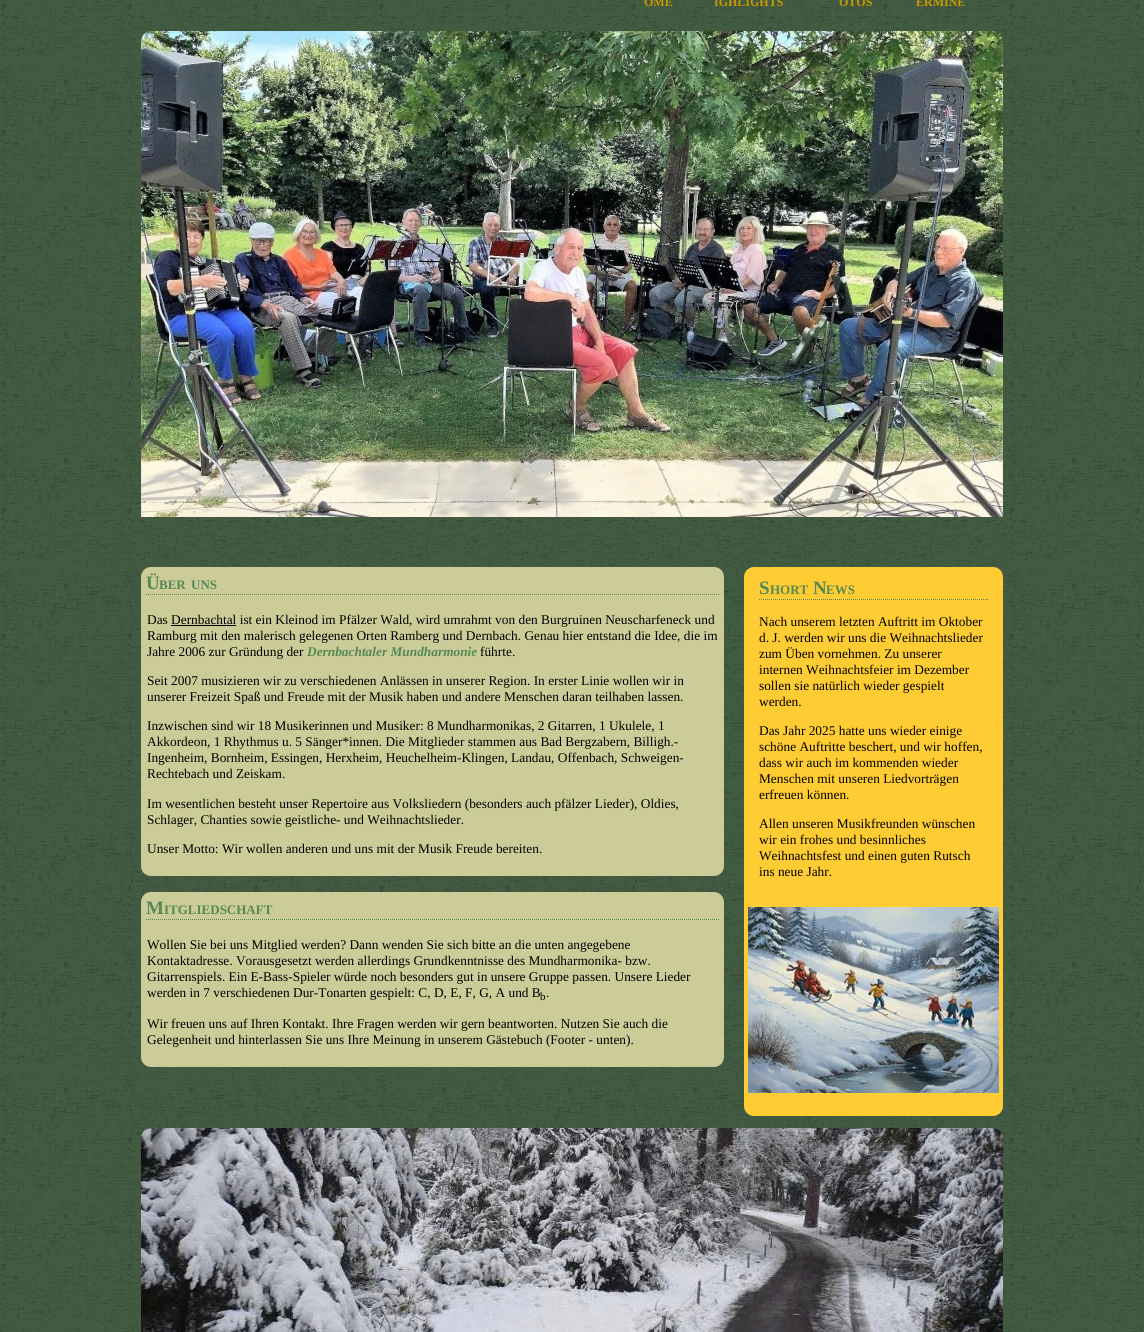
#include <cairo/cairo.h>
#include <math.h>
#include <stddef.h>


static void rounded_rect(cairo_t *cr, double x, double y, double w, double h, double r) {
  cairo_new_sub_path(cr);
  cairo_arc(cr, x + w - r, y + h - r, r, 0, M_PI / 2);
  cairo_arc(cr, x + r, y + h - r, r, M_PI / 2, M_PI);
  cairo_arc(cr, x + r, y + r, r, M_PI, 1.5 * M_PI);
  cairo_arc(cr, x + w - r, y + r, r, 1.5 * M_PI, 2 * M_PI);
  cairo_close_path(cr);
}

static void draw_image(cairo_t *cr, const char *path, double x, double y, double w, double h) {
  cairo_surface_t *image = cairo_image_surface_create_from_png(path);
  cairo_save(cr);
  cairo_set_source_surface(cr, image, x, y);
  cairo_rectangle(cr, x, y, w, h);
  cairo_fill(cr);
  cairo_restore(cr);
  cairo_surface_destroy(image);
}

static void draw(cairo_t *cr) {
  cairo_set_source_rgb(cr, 1, 1, 1);
  cairo_paint(cr);
  draw_image(cr, "images/1.png", 0, 0, 1144, 1332);
  draw_image(cr, "images/2.png", 141, 31, 862, 486);
  cairo_set_source_rgb(cr, 204 / 255.0, 204 / 255.0, 153 / 255.0);
  rounded_rect(cr, 141, 567, 583, 309, 10);
  cairo_fill(cr);
  cairo_new_path(cr);
  cairo_move_to(cr, 146, 594.5);
  cairo_line_to(cr, 719, 594.5);
  cairo_set_source_rgb(cr, 85 / 255.0, 136 / 255.0, 85 / 255.0);
  cairo_set_line_width(cr, 1);
  cairo_set_dash(cr, (double[]){1, 1}, 2, 0);
  cairo_stroke(cr);
  cairo_set_source_rgb(cr, 0, 0, 0);
  cairo_rectangle(cr, 171, 625, 65, 1);
  cairo_fill(cr);
  cairo_set_source_rgb(cr, 204 / 255.0, 204 / 255.0, 153 / 255.0);
  rounded_rect(cr, 141, 892, 583, 175, 10);
  cairo_fill(cr);
  cairo_new_path(cr);
  cairo_move_to(cr, 146, 919.5);
  cairo_line_to(cr, 719, 919.5);
  cairo_set_source_rgb(cr, 85 / 255.0, 136 / 255.0, 85 / 255.0);
  cairo_stroke(cr);
  cairo_set_source_rgb(cr, 1, 204 / 255.0, 51 / 255.0);
  rounded_rect(cr, 744, 567, 259, 549, 10);
  cairo_fill(cr);
  cairo_new_path(cr);
  cairo_move_to(cr, 759, 599.5);
  cairo_line_to(cr, 988, 599.5);
  cairo_set_source_rgb(cr, 85 / 255.0, 136 / 255.0, 85 / 255.0);
  cairo_stroke(cr);
  draw_image(cr, "images/3.png", 748, 907, 251, 186);
  draw_image(cr, "images/4.png", 141, 1128, 862, 204);
  cairo_select_font_face(cr, "Liberation Serif", CAIRO_FONT_SLANT_NORMAL, CAIRO_FONT_WEIGHT_BOLD);
  cairo_set_font_size(cr, 12);
  cairo_set_source_rgb(cr, 204 / 255.0, 153 / 255.0, 0);
  cairo_move_to(cr, 644, 6);
  cairo_show_text(cr, "OME");
  cairo_move_to(cr, 714, 6);
  cairo_show_text(cr, "IGHLIGHTS");
  cairo_move_to(cr, 839, 6);
  cairo_show_text(cr, "OTOS");
  cairo_move_to(cr, 916, 6);
  cairo_show_text(cr, "ERMINE");
  cairo_set_font_size(cr, 19);
  cairo_set_source_rgb(cr, 85 / 255.0, 136 / 255.0, 85 / 255.0);
  cairo_move_to(cr, 146, 589);
  cairo_show_text(cr, "Ü");
  cairo_set_font_size(cr, 13);
  cairo_move_to(cr, 159, 589);
  cairo_show_text(cr, "BER");
  cairo_move_to(cr, 191, 589);
  cairo_show_text(cr, "UNS");
  cairo_select_font_face(cr, "Liberation Serif", CAIRO_FONT_SLANT_NORMAL, CAIRO_FONT_WEIGHT_NORMAL);
  cairo_set_font_size(cr, 13.35);
  cairo_set_source_rgb(cr, 0, 0, 0);
  cairo_move_to(cr, 147, 624);
  cairo_show_text(cr, "Das Dernbachtal ist ein Kleinod im Pfälzer Wald, wird umrahmt von den Burgruinen Neuscharfeneck und");
  cairo_move_to(cr, 147, 640);
  cairo_show_text(cr, "Ramburg mit den malerisch gelegenen Orten Ramberg und Dernbach. Genau hier entstand die Idee, die im");
  cairo_move_to(cr, 147, 656);
  cairo_show_text(cr, "Jahre 2006 zur Gründung der");
  cairo_select_font_face(cr, "Liberation Serif", CAIRO_FONT_SLANT_ITALIC, CAIRO_FONT_WEIGHT_BOLD);
  cairo_set_source_rgb(cr, 85 / 255.0, 136 / 255.0, 85 / 255.0);
  cairo_move_to(cr, 307, 656);
  cairo_show_text(cr, "Dernbachtaler Mundharmonie");
  cairo_select_font_face(cr, "Liberation Serif", CAIRO_FONT_SLANT_NORMAL, CAIRO_FONT_WEIGHT_NORMAL);
  cairo_set_source_rgb(cr, 0, 0, 0);
  cairo_move_to(cr, 480, 656);
  cairo_show_text(cr, "führte.");
  cairo_move_to(cr, 147, 685);
  cairo_show_text(cr, "Seit 2007 musizieren wir zu verschiedenen Anlässen in unserer Region. In erster Linie wollen wir in");
  cairo_move_to(cr, 147, 701);
  cairo_show_text(cr, "unserer Freizeit Spaß und Freude mit der Musik haben und andere Menschen daran teilhaben lassen.");
  cairo_move_to(cr, 147, 730);
  cairo_show_text(cr, "Inzwischen sind wir 18 Musikerinnen und Musiker: 8 Mundharmonikas, 2 Gitarren, 1 Ukulele, 1");
  cairo_move_to(cr, 147, 746);
  cairo_show_text(cr, "Akkordeon, 1 Rhythmus u. 5 Sänger*innen. Die Mitglieder stammen aus Bad Bergzabern, Billigh.-");
  cairo_move_to(cr, 147, 762);
  cairo_show_text(cr, "Ingenheim, Bornheim, Essingen, Herxheim, Heuchelheim-Klingen, Landau, Offenbach, Schweigen-");
  cairo_move_to(cr, 147, 778);
  cairo_show_text(cr, "Rechtebach und Zeiskam.");
  cairo_move_to(cr, 147, 808);
  cairo_show_text(cr, "Im wesentlichen besteht unser Repertoire aus Volksliedern (besonders auch pfälzer Lieder), Oldies,");
  cairo_move_to(cr, 147, 824);
  cairo_show_text(cr, "Schlager, Chanties sowie geistliche- und Weihnachtslieder.");
  cairo_move_to(cr, 147, 853);
  cairo_show_text(cr, "Unser Motto: Wir wollen anderen und uns mit der Musik Freude bereiten.");
  cairo_select_font_face(cr, "Liberation Serif", CAIRO_FONT_SLANT_NORMAL, CAIRO_FONT_WEIGHT_BOLD);
  cairo_set_font_size(cr, 19);
  cairo_set_source_rgb(cr, 85 / 255.0, 136 / 255.0, 85 / 255.0);
  cairo_move_to(cr, 146, 914);
  cairo_show_text(cr, "M");
  cairo_set_font_size(cr, 13);
  cairo_move_to(cr, 164, 914);
  cairo_show_text(cr, "ITGLIEDSCHAFT");
  cairo_select_font_face(cr, "Liberation Serif", CAIRO_FONT_SLANT_NORMAL, CAIRO_FONT_WEIGHT_NORMAL);
  cairo_set_font_size(cr, 13.35);
  cairo_set_source_rgb(cr, 0, 0, 0);
  cairo_move_to(cr, 147, 949);
  cairo_show_text(cr, "Wollen Sie bei uns Mitglied werden? Dann wenden Sie sich bitte an die unten angegebene");
  cairo_move_to(cr, 147, 965);
  cairo_show_text(cr, "Kontaktadresse. Vorausgesetzt werden allerdings Grundkenntnisse des Mundharmonika- bzw.");
  cairo_move_to(cr, 147, 981);
  cairo_show_text(cr, "Gitarrenspiels. Ein E-Bass-Spieler würde noch besonders gut in unsere Gruppe passen. Unsere Lieder");
  cairo_move_to(cr, 147, 997);
  cairo_show_text(cr, "werden in 7 verschiedenen Dur-Tonarten gespielt: C, D, E, F, G, A und B");
  cairo_set_font_size(cr, 11);
  cairo_move_to(cr, 540, 1000);
  cairo_show_text(cr, "b");
  cairo_set_font_size(cr, 13.35);
  cairo_move_to(cr, 546, 997);
  cairo_show_text(cr, ".");
  cairo_move_to(cr, 147, 1028);
  cairo_show_text(cr, "Wir freuen uns auf Ihren Kontakt. Ihre Fragen werden wir gern beantworten. Nutzen Sie auch die");
  cairo_move_to(cr, 147, 1044);
  cairo_show_text(cr, "Gelegenheit und hinterlassen Sie uns Ihre Meinung in unserem Gästebuch (Footer - unten).");
  cairo_select_font_face(cr, "Liberation Serif", CAIRO_FONT_SLANT_NORMAL, CAIRO_FONT_WEIGHT_BOLD);
  cairo_set_font_size(cr, 19);
  cairo_set_source_rgb(cr, 85 / 255.0, 136 / 255.0, 85 / 255.0);
  cairo_move_to(cr, 759, 594);
  cairo_show_text(cr, "S");
  cairo_set_font_size(cr, 13);
  cairo_move_to(cr, 770, 594);
  cairo_show_text(cr, "HORT");
  cairo_set_font_size(cr, 19);
  cairo_move_to(cr, 813, 594);
  cairo_show_text(cr, "N");
  cairo_set_font_size(cr, 13);
  cairo_move_to(cr, 826, 594);
  cairo_show_text(cr, "EWS");
  cairo_select_font_face(cr, "Liberation Serif", CAIRO_FONT_SLANT_NORMAL, CAIRO_FONT_WEIGHT_NORMAL);
  cairo_set_font_size(cr, 13.35);
  cairo_set_source_rgb(cr, 0, 0, 0);
  cairo_move_to(cr, 759, 626);
  cairo_show_text(cr, "Nach unserem letzten Auftritt im Oktober");
  cairo_move_to(cr, 759, 642);
  cairo_show_text(cr, "d. J. werden wir uns die Weihnachtslieder");
  cairo_move_to(cr, 759, 658);
  cairo_show_text(cr, "zum Üben vornehmen. Zu unserer");
  cairo_move_to(cr, 759, 674);
  cairo_show_text(cr, "internen Weihnachtsfeier im Dezember");
  cairo_move_to(cr, 759, 690);
  cairo_show_text(cr, "sollen sie natürlich wieder gespielt");
  cairo_move_to(cr, 759, 706);
  cairo_show_text(cr, "werden.");
  cairo_move_to(cr, 759, 735);
  cairo_show_text(cr, "Das Jahr 2025 hatte uns wieder einige");
  cairo_move_to(cr, 759, 751);
  cairo_show_text(cr, "schöne Auftritte beschert, und wir hoffen,");
  cairo_move_to(cr, 759, 767);
  cairo_show_text(cr, "dass wir auch im kommenden wieder");
  cairo_move_to(cr, 759, 783);
  cairo_show_text(cr, "Menschen mit unseren Liedvorträgen");
  cairo_move_to(cr, 759, 799);
  cairo_show_text(cr, "erfreuen können.");
  cairo_move_to(cr, 759, 828);
  cairo_show_text(cr, "Allen unseren Musikfreunden wünschen");
  cairo_move_to(cr, 759, 844);
  cairo_show_text(cr, "wir ein frohes und besinnliches");
  cairo_move_to(cr, 759, 860);
  cairo_show_text(cr, "Weihnachtsfest und einen guten Rutsch");
  cairo_move_to(cr, 759, 876);
  cairo_show_text(cr, "ins neue Jahr.");
}

int main(void) {
  cairo_surface_t *surface = cairo_image_surface_create(CAIRO_FORMAT_RGB24, 1144, 1332);
  cairo_t *cr = cairo_create(surface);
  cairo_font_options_t *options = cairo_font_options_create();
  cairo_font_options_set_hint_metrics(options, CAIRO_HINT_METRICS_OFF);
  cairo_font_options_set_hint_style(options, CAIRO_HINT_STYLE_NONE);
  cairo_set_font_options(cr, options);
  cairo_set_miter_limit(cr, 4);
  draw(cr);
  cairo_surface_write_to_png(surface, "out.png");
  cairo_font_options_destroy(options);
  cairo_destroy(cr);
  cairo_surface_destroy(surface);
  return 0;
}
